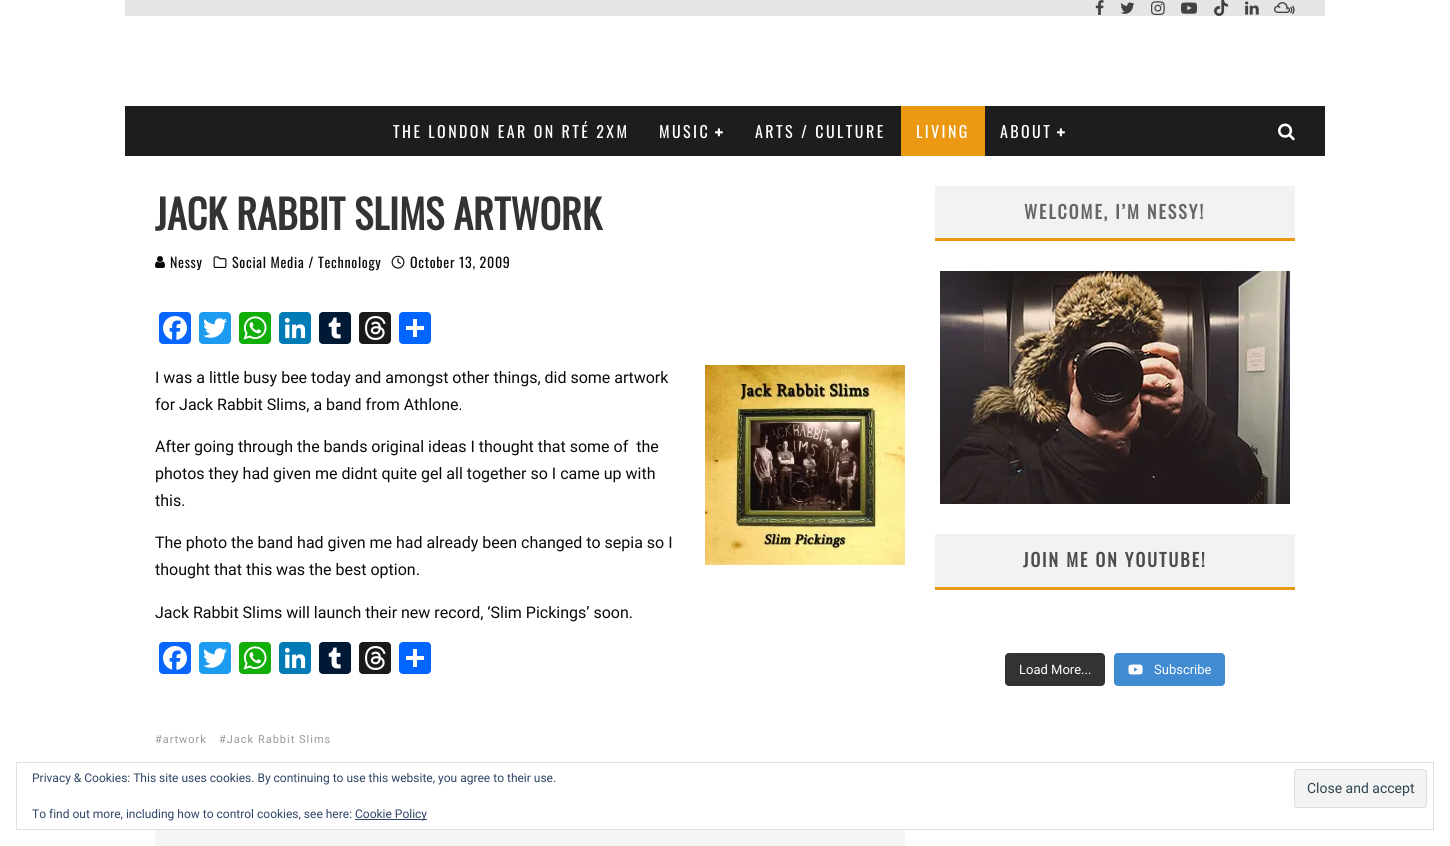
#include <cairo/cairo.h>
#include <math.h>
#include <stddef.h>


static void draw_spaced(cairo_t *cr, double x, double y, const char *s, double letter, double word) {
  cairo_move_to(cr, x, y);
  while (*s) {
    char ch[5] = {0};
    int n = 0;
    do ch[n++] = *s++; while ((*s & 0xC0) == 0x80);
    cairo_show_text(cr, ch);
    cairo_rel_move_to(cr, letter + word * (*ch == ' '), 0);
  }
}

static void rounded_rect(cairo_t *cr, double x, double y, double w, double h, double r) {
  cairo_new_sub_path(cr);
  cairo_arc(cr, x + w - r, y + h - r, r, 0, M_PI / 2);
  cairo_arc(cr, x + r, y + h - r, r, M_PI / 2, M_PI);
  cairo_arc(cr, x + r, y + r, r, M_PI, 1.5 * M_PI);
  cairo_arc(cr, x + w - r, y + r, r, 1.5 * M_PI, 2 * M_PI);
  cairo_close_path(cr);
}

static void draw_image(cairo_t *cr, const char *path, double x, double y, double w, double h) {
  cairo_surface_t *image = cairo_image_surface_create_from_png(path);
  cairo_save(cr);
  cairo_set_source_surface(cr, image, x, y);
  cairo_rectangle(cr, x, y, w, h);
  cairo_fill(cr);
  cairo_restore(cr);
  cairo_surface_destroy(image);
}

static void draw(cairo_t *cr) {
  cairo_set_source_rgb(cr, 1, 1, 1);
  cairo_paint(cr);
  cairo_set_source_rgb(cr, 229 / 255.0, 229 / 255.0, 229 / 255.0);
  cairo_rectangle(cr, 125, 0, 1200, 16);
  cairo_fill(cr);
  draw_image(cr, "images/1.png", 1095, 0, 9, 15);
  draw_image(cr, "images/2.png", 1120, 2, 15, 12);
  draw_image(cr, "images/3.png", 1151, 1, 14, 14);
  draw_image(cr, "images/4.png", 1181, 2, 16, 12);
  draw_image(cr, "images/5.png", 1214, 0, 14, 16);
  draw_image(cr, "images/6.png", 1245, 1, 14, 14);
  draw_image(cr, "images/7.png", 1274, 2, 21, 13);
  cairo_set_source_rgb(cr, 29 / 255.0, 29 / 255.0, 29 / 255.0);
  cairo_rectangle(cr, 125, 106, 1200, 50);
  cairo_fill(cr);
  draw_image(cr, "images/8.png", 715, 128, 8, 9);
  cairo_set_source_rgb(cr, 235 / 255.0, 152 / 255.0, 18 / 255.0);
  cairo_rectangle(cr, 901, 106, 84, 50);
  cairo_fill(cr);
  draw_image(cr, "images/8.png", 1057, 128, 8, 9);
  draw_image(cr, "images/9.png", 1278, 123, 17, 18);
  draw_image(cr, "images/10.png", 155, 256, 10, 12);
  draw_image(cr, "images/11.png", 213, 256, 14, 12);
  draw_image(cr, "images/12.png", 391, 255, 14, 14);
  cairo_set_source_rgb(cr, 8 / 255.0, 102 / 255.0, 1);
  rounded_rect(cr, 159, 312, 32, 32, 4);
  cairo_fill(cr);
  draw_image(cr, "images/13.png", 163, 316, 24, 24);
  cairo_set_source_rgb(cr, 29 / 255.0, 155 / 255.0, 240 / 255.0);
  rounded_rect(cr, 199, 312, 32, 32, 4);
  cairo_fill(cr);
  draw_image(cr, "images/14.png", 203, 318, 24, 20);
  cairo_set_source_rgb(cr, 18 / 255.0, 175 / 255.0, 10 / 255.0);
  rounded_rect(cr, 239, 312, 32, 32, 4);
  cairo_fill(cr);
  draw_image(cr, "images/15.png", 243, 316, 24, 24);
  cairo_set_source_rgb(cr, 0, 123 / 255.0, 181 / 255.0);
  rounded_rect(cr, 279, 312, 32, 32, 4);
  cairo_fill(cr);
  draw_image(cr, "images/16.png", 284, 317, 22, 22);
  cairo_set_source_rgb(cr, 0, 25 / 255.0, 53 / 255.0);
  rounded_rect(cr, 319, 312, 32, 32, 4);
  cairo_fill(cr);
  draw_image(cr, "images/17.png", 328, 317, 13, 22);
  cairo_set_source_rgb(cr, 26 / 255.0, 26 / 255.0, 26 / 255.0);
  rounded_rect(cr, 359, 312, 32, 32, 4);
  cairo_fill(cr);
  draw_image(cr, "images/18.png", 365, 316, 21, 24);
  cairo_set_source_rgb(cr, 1 / 255.0, 102 / 255.0, 1);
  rounded_rect(cr, 399, 312, 32, 32, 4);
  cairo_fill(cr);
  cairo_set_source_rgb(cr, 1, 1, 1);
  cairo_rectangle(cr, 413, 319, 4, 18);
  cairo_fill(cr);
  cairo_rectangle(cr, 406, 326, 18, 4);
  cairo_fill(cr);
  draw_image(cr, "images/19.png", 705, 365, 200, 200);
  cairo_set_source_rgb(cr, 8 / 255.0, 102 / 255.0, 1);
  rounded_rect(cr, 159, 642, 32, 32, 4);
  cairo_fill(cr);
  draw_image(cr, "images/13.png", 163, 646, 24, 24);
  cairo_set_source_rgb(cr, 29 / 255.0, 155 / 255.0, 240 / 255.0);
  rounded_rect(cr, 199, 642, 32, 32, 4);
  cairo_fill(cr);
  draw_image(cr, "images/14.png", 203, 648, 24, 20);
  cairo_set_source_rgb(cr, 18 / 255.0, 175 / 255.0, 10 / 255.0);
  rounded_rect(cr, 239, 642, 32, 32, 4);
  cairo_fill(cr);
  draw_image(cr, "images/15.png", 243, 646, 24, 24);
  cairo_set_source_rgb(cr, 0, 123 / 255.0, 181 / 255.0);
  rounded_rect(cr, 279, 642, 32, 32, 4);
  cairo_fill(cr);
  draw_image(cr, "images/16.png", 284, 647, 22, 22);
  cairo_set_source_rgb(cr, 0, 25 / 255.0, 53 / 255.0);
  rounded_rect(cr, 319, 642, 32, 32, 4);
  cairo_fill(cr);
  draw_image(cr, "images/17.png", 328, 647, 13, 22);
  cairo_set_source_rgb(cr, 26 / 255.0, 26 / 255.0, 26 / 255.0);
  rounded_rect(cr, 359, 642, 32, 32, 4);
  cairo_fill(cr);
  draw_image(cr, "images/18.png", 365, 646, 21, 24);
  cairo_set_source_rgb(cr, 1 / 255.0, 102 / 255.0, 1);
  rounded_rect(cr, 399, 642, 32, 32, 4);
  cairo_fill(cr);
  cairo_set_source_rgb(cr, 1, 1, 1);
  cairo_rectangle(cr, 413, 649, 4, 18);
  cairo_fill(cr);
  cairo_rectangle(cr, 406, 656, 18, 4);
  cairo_fill(cr);
  cairo_set_source_rgb(cr, 245 / 255.0, 245 / 255.0, 245 / 255.0);
  cairo_rectangle(cr, 155, 830, 750, 16);
  cairo_fill(cr);
  cairo_set_source_rgb(cr, 242 / 255.0, 242 / 255.0, 242 / 255.0);
  cairo_rectangle(cr, 935, 186, 360, 52);
  cairo_fill(cr);
  cairo_set_source_rgb(cr, 235 / 255.0, 152 / 255.0, 18 / 255.0);
  cairo_rectangle(cr, 935, 238, 360, 3);
  cairo_fill(cr);
  draw_image(cr, "images/20.png", 940, 271, 350, 233);
  cairo_set_source_rgb(cr, 242 / 255.0, 242 / 255.0, 242 / 255.0);
  cairo_rectangle(cr, 935, 534, 360, 53);
  cairo_fill(cr);
  cairo_set_source_rgb(cr, 235 / 255.0, 152 / 255.0, 18 / 255.0);
  cairo_rectangle(cr, 935, 587, 360, 3);
  cairo_fill(cr);
  cairo_set_source_rgb(cr, 51 / 255.0, 51 / 255.0, 51 / 255.0);
  rounded_rect(cr, 1005, 653, 100, 33, 4);
  cairo_fill(cr);
  cairo_set_source_rgb(cr, 64 / 255.0, 139 / 255.0, 209 / 255.0);
  rounded_rect(cr, 1114, 653, 111, 33, 4);
  cairo_fill(cr);
  draw_image(cr, "images/21.png", 1128, 664, 15, 11);
  cairo_rectangle(cr, 16.5, 762.5, 1417, 67);
  cairo_set_source_rgb(cr, 222 / 255.0, 222 / 255.0, 222 / 255.0);
  cairo_set_line_width(cr, 1);
  cairo_stroke(cr);
  cairo_set_source_rgb(cr, 243 / 255.0, 243 / 255.0, 243 / 255.0);
  rounded_rect(cr, 1294.5, 769.5, 132, 38, 2.5);
  cairo_fill_preserve(cr);
  cairo_set_source_rgb(cr, 222 / 255.0, 222 / 255.0, 222 / 255.0);
  cairo_stroke(cr);
  cairo_set_source_rgb(cr, 46 / 255.0, 68 / 255.0, 103 / 255.0);
  cairo_rectangle(cr, 355, 819, 72, 1);
  cairo_fill(cr);
  cairo_select_font_face(cr, "Oswald", CAIRO_FONT_SLANT_NORMAL, CAIRO_FONT_WEIGHT_NORMAL);
  cairo_set_font_size(cr, 16);
  cairo_set_source_rgb(cr, 1, 1, 1);
  draw_spaced(cr, 393, 138, "THE LONDON EAR ON RTÉ 2XM", 2.4, 0);
  draw_spaced(cr, 659, 138, "MUSIC", 2.4, 0);
  draw_spaced(cr, 755, 138, "ARTS / CULTURE", 2.4, 0);
  draw_spaced(cr, 916, 138, "LIVING", 2.4, 0);
  draw_spaced(cr, 1000, 138, "ABOUT", 2.4, 0);
  cairo_select_font_face(cr, "Oswald", CAIRO_FONT_SLANT_NORMAL, CAIRO_FONT_WEIGHT_BOLD);
  cairo_set_font_size(cr, 40);
  cairo_set_source_rgb(cr, 51 / 255.0, 51 / 255.0, 51 / 255.0);
  cairo_move_to(cr, 155, 230);
  cairo_show_text(cr, "JACK RABBIT SLIMS ARTWORK");
  cairo_select_font_face(cr, "Oswald", CAIRO_FONT_SLANT_NORMAL, CAIRO_FONT_WEIGHT_NORMAL);
  cairo_set_font_size(cr, 14);
  cairo_set_source_rgb(cr, 10 / 255.0, 10 / 255.0, 10 / 255.0);
  draw_spaced(cr, 170, 268, "Nessy", 0.7, 0);
  draw_spaced(cr, 232, 268, "Social Media / Technology", 0.7, 0);
  draw_spaced(cr, 410, 268, "October 13, 2009", 0.7, 0);
  cairo_select_font_face(cr, "Roboto", CAIRO_FONT_SLANT_NORMAL, CAIRO_FONT_WEIGHT_NORMAL);
  cairo_set_font_size(cr, 16);
  cairo_move_to(cr, 155, 383);
  cairo_show_text(cr, "I was a little busy bee today and amongst other things, did some artwork");
  cairo_move_to(cr, 155, 410);
  cairo_show_text(cr, "for Jack Rabbit Slims, a band from Athlone.");
  cairo_move_to(cr, 155, 452);
  cairo_show_text(cr, "After going through the bands original ideas I thought that some of  the");
  cairo_move_to(cr, 155, 479);
  cairo_show_text(cr, "photos they had given me didnt quite gel all together so I came up with");
  cairo_move_to(cr, 155, 506);
  cairo_show_text(cr, "this.");
  cairo_move_to(cr, 155, 548);
  cairo_show_text(cr, "The photo the band had given me had already been changed to sepia so I");
  cairo_move_to(cr, 155, 575);
  cairo_show_text(cr, "thought that this was the best option.");
  cairo_move_to(cr, 155, 618);
  cairo_show_text(cr, "Jack Rabbit Slims will launch their new record, ‘Slim Pickings’ soon.");
  cairo_set_font_size(cr, 11);
  cairo_set_source_rgb(cr, 153 / 255.0, 153 / 255.0, 153 / 255.0);
  draw_spaced(cr, 155, 743, "#artwork", 1, 0);
  draw_spaced(cr, 219, 743, "#Jack Rabbit Slims", 1, 0);
  cairo_select_font_face(cr, "Oswald", CAIRO_FONT_SLANT_NORMAL, CAIRO_FONT_WEIGHT_BOLD);
  cairo_set_font_size(cr, 18);
  cairo_set_source_rgb(cr, 102 / 255.0, 102 / 255.0, 102 / 255.0);
  draw_spaced(cr, 1024, 219, "WELCOME, I’M NESSY!", 2, 0);
  cairo_set_source_rgb(cr, 77 / 255.0, 77 / 255.0, 77 / 255.0);
  draw_spaced(cr, 1023, 567, "JOIN ME ON YOUTUBE!", 2, 0);
  cairo_select_font_face(cr, "Roboto", CAIRO_FONT_SLANT_NORMAL, CAIRO_FONT_WEIGHT_NORMAL);
  cairo_set_font_size(cr, 13);
  cairo_set_source_rgb(cr, 1, 1, 1);
  cairo_move_to(cr, 1019, 674);
  cairo_show_text(cr, "Load More...");
  cairo_move_to(cr, 1154, 674);
  cairo_show_text(cr, "Subscribe");
  cairo_set_font_size(cr, 12);
  cairo_set_source_rgb(cr, 46 / 255.0, 68 / 255.0, 103 / 255.0);
  cairo_move_to(cr, 32, 782);
  cairo_show_text(cr, "Privacy & Cookies: This site uses cookies. By continuing to use this website, you agree to their use.");
  cairo_set_font_size(cr, 14);
  cairo_set_source_rgb(cr, 46 / 255.0, 68 / 255.0, 83 / 255.0);
  cairo_move_to(cr, 1307, 793);
  cairo_show_text(cr, "Close and accept");
  cairo_set_font_size(cr, 12);
  cairo_set_source_rgb(cr, 46 / 255.0, 68 / 255.0, 103 / 255.0);
  cairo_move_to(cr, 32, 818);
  cairo_show_text(cr, "To find out more, including how to control cookies, see here:");
  cairo_move_to(cr, 355, 818);
  cairo_show_text(cr, "Cookie Policy");
}

int main(void) {
  cairo_surface_t *surface = cairo_image_surface_create(CAIRO_FORMAT_RGB24, 1450, 846);
  cairo_t *cr = cairo_create(surface);
  cairo_font_options_t *options = cairo_font_options_create();
  cairo_font_options_set_hint_metrics(options, CAIRO_HINT_METRICS_OFF);
  cairo_font_options_set_hint_style(options, CAIRO_HINT_STYLE_NONE);
  cairo_set_font_options(cr, options);
  cairo_set_miter_limit(cr, 4);
  draw(cr);
  cairo_surface_write_to_png(surface, "out.png");
  cairo_font_options_destroy(options);
  cairo_destroy(cr);
  cairo_surface_destroy(surface);
  return 0;
}
